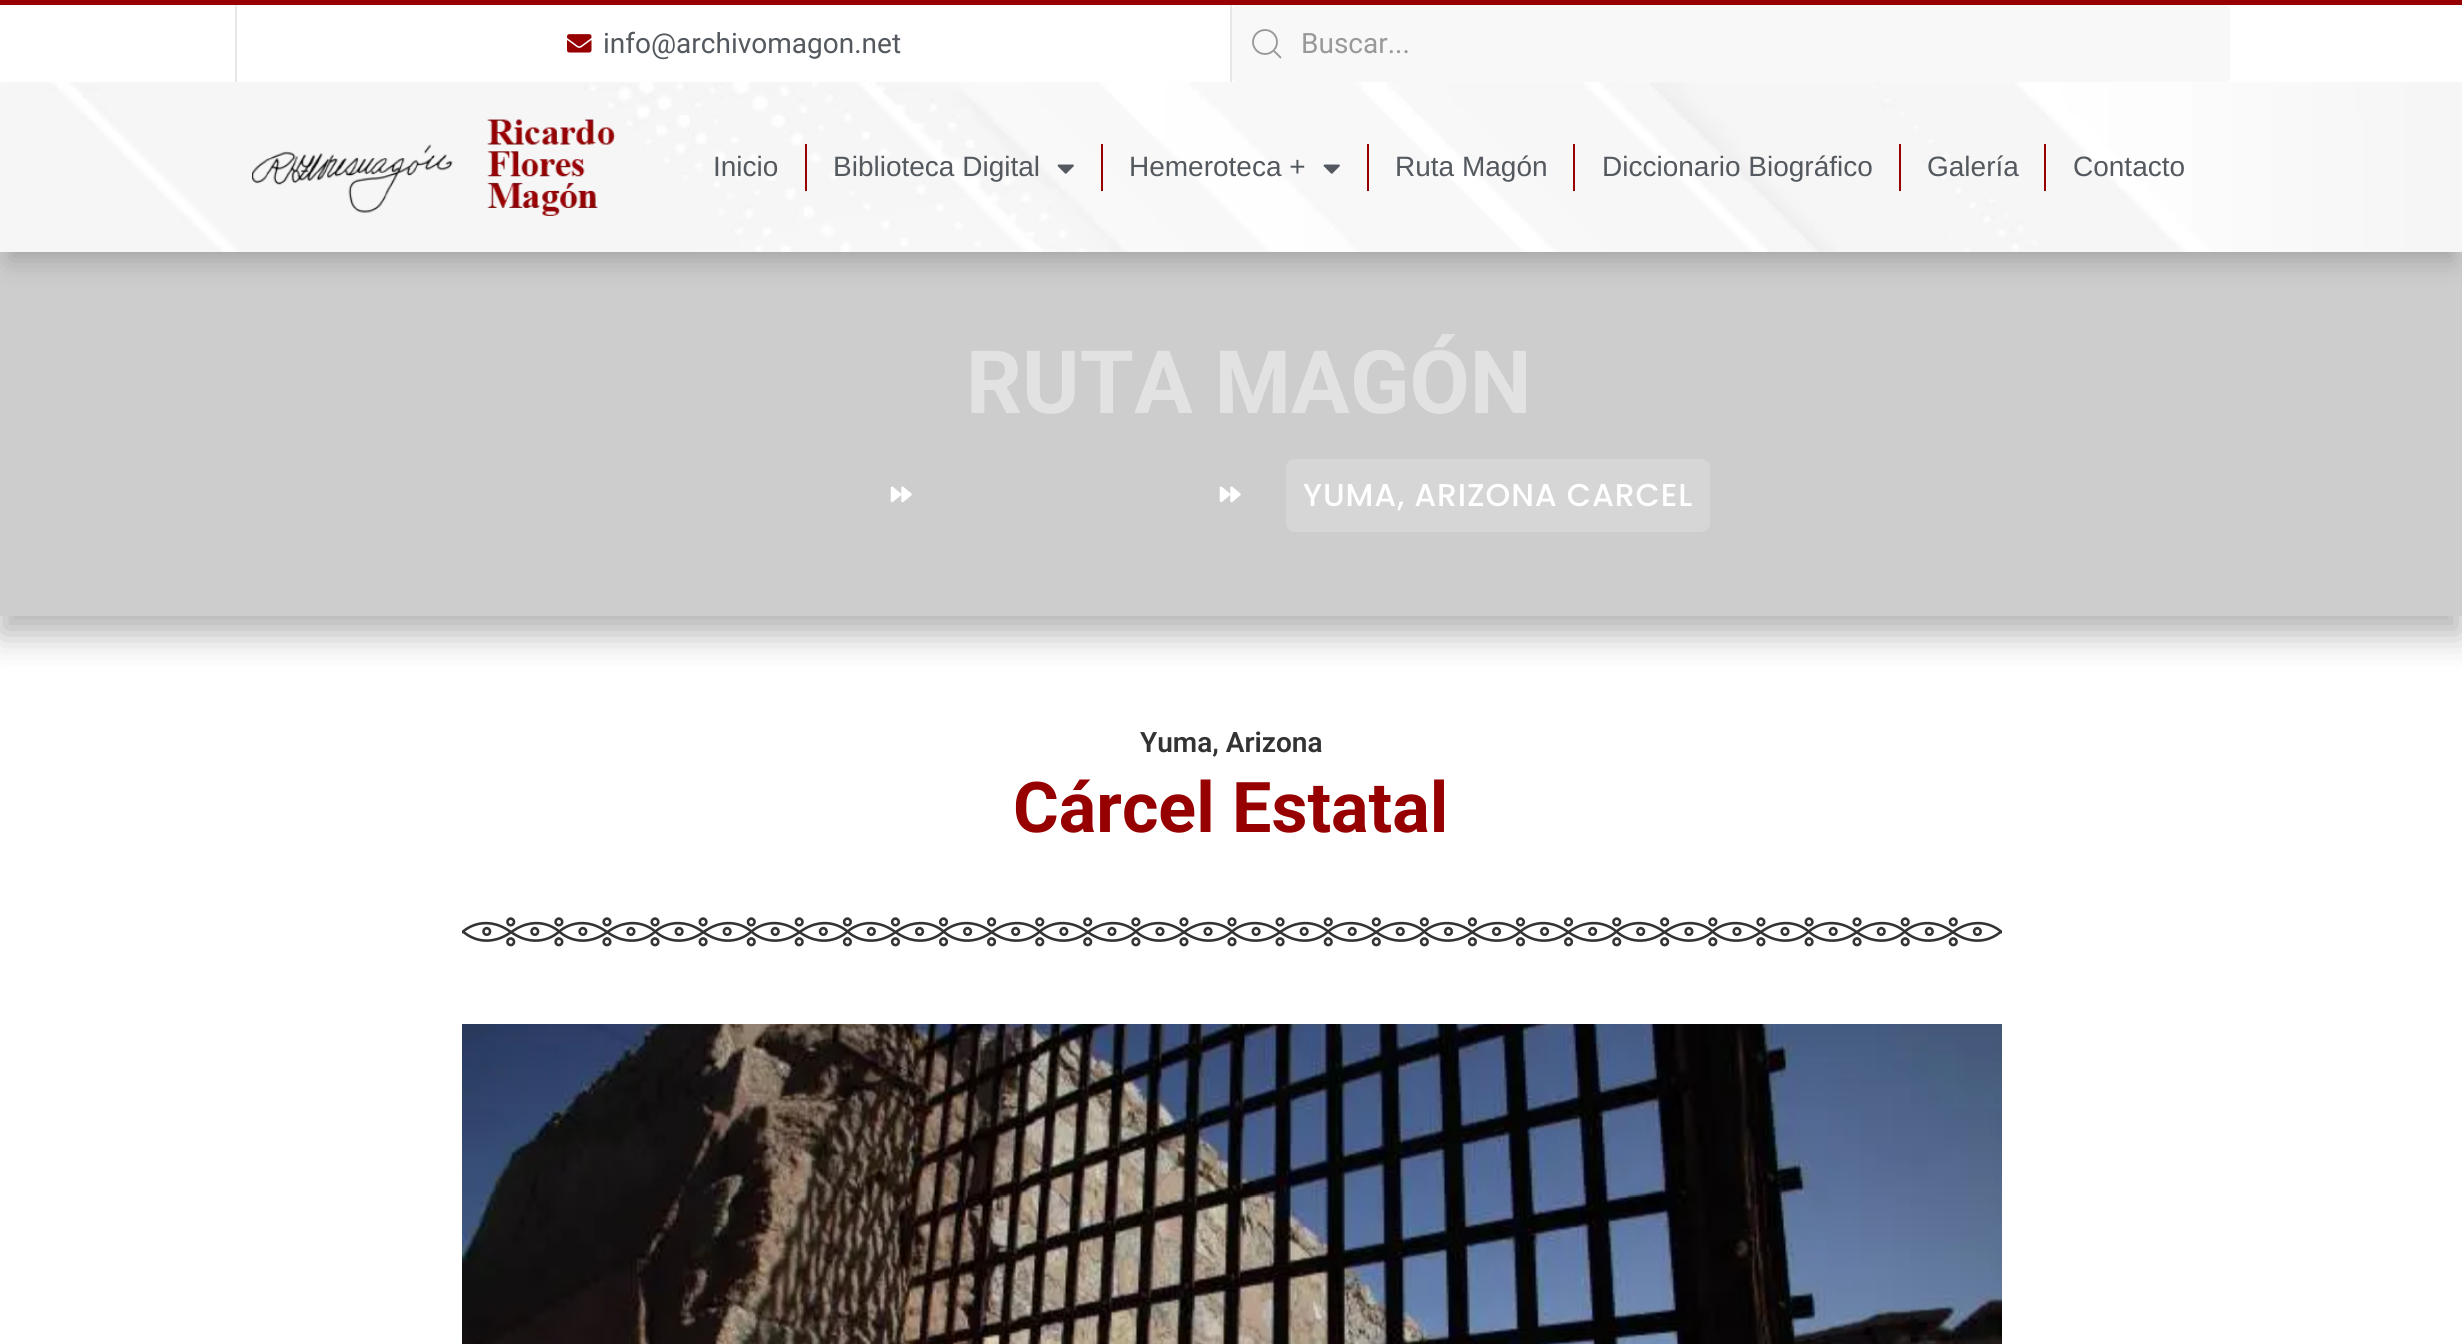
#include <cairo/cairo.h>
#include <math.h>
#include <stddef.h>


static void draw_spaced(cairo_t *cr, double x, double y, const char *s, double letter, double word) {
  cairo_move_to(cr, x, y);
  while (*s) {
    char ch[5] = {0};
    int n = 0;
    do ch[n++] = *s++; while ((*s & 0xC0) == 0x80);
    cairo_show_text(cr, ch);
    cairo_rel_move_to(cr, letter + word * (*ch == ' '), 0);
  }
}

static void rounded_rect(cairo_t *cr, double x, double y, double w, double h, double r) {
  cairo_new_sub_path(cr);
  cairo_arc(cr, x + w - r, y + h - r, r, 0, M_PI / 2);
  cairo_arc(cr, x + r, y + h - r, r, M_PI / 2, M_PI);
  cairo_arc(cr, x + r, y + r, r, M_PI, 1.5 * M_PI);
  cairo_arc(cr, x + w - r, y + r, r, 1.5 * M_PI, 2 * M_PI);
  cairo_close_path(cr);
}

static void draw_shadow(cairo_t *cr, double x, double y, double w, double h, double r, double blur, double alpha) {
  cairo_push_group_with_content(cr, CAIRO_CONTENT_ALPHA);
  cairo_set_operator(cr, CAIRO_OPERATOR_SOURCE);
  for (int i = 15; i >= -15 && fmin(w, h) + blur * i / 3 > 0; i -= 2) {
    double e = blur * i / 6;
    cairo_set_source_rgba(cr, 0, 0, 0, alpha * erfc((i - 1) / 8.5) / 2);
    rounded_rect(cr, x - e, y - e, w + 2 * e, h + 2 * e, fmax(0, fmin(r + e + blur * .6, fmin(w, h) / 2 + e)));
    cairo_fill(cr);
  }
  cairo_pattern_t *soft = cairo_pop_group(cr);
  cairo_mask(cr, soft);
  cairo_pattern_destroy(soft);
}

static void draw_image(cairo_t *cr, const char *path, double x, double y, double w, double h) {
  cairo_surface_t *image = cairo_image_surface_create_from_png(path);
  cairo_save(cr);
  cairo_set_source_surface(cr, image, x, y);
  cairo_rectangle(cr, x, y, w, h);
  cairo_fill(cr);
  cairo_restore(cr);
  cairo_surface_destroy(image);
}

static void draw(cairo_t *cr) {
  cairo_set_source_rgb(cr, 1, 1, 1);
  cairo_paint(cr);
  cairo_set_source_rgb(cr, 150 / 255.0, 0, 0);
  cairo_rectangle(cr, 0, 0, 2462, 5);
  cairo_fill(cr);
  cairo_set_source_rgb(cr, 232 / 255.0, 232 / 255.0, 232 / 255.0);
  cairo_rectangle(cr, 1230, 5, 2, 77);
  cairo_fill(cr);
  cairo_rectangle(cr, 235, 5, 2, 77);
  cairo_fill(cr);
  draw_image(cr, "images/1.png", 567, 34, 25, 19);
  cairo_set_source_rgb(cr, 248 / 255.0, 248 / 255.0, 248 / 255.0);
  rounded_rect(cr, 1232, 5, 998, 77, 5);
  cairo_fill(cr);
  cairo_arc(cr, 1265, 42, 12, 0, 2 * M_PI);
  cairo_set_source_rgb(cr, 153 / 255.0, 153 / 255.0, 153 / 255.0);
  cairo_set_line_width(cr, 1.9);
  cairo_stroke(cr);
  cairo_new_path(cr);
  cairo_move_to(cr, 1274, 51);
  cairo_line_to(cr, 1281, 58);
  cairo_close_path(cr);
  cairo_stroke(cr);
  cairo_set_source_rgb(cr, 0, 0, 0);
  draw_shadow(cr, 0, 270, 2462, 364, 0, 17.5, 0.3);
  cairo_set_source_rgb(cr, 205 / 255.0, 205 / 255.0, 205 / 255.0);
  cairo_rectangle(cr, 0, 252, 2462, 364);
  cairo_fill(cr);
  cairo_set_source_rgb(cr, 0, 0, 0);
  draw_shadow(cr, 9, 109, 2445, 152, 0, 13, 0.2);
  draw_image(cr, "images/2.png", 0, 82, 2462, 170);
  draw_image(cr, "images/3.png", 252, 119, 363, 97);
  cairo_set_source_rgb(cr, 150 / 255.0, 0, 0);
  cairo_rectangle(cr, 805, 144, 2, 47);
  cairo_fill(cr);
  draw_image(cr, "images/4.png", 1057, 164, 17, 10);
  cairo_rectangle(cr, 1101, 144, 2, 47);
  cairo_fill(cr);
  draw_image(cr, "images/5.png", 1323, 164, 17, 10);
  cairo_rectangle(cr, 1367, 144, 2, 47);
  cairo_fill(cr);
  cairo_rectangle(cr, 1573, 144, 2, 47);
  cairo_fill(cr);
  cairo_rectangle(cr, 1899, 144, 2, 47);
  cairo_fill(cr);
  cairo_rectangle(cr, 2044, 144, 2, 47);
  cairo_fill(cr);
  draw_image(cr, "images/6.png", 890, 486, 22, 17);
  draw_image(cr, "images/6.png", 1219, 486, 22, 17);
  cairo_set_source_rgb(cr, 214 / 255.0, 214 / 255.0, 214 / 255.0);
  rounded_rect(cr, 1286, 459, 424, 73, 9);
  cairo_fill(cr);
  draw_image(cr, "images/7.png", 462, 917, 1540, 30);
  draw_image(cr, "images/8.png", 462, 1024, 1540, 320);
  cairo_select_font_face(cr, "Roboto", CAIRO_FONT_SLANT_NORMAL, CAIRO_FONT_WEIGHT_NORMAL);
  cairo_set_font_size(cr, 28);
  cairo_set_source_rgb(cr, 84 / 255.0, 89 / 255.0, 95 / 255.0);
  cairo_move_to(cr, 603, 53);
  cairo_show_text(cr, "info@archivomagon.net");
  cairo_set_source_rgb(cr, 153 / 255.0, 153 / 255.0, 153 / 255.0);
  cairo_move_to(cr, 1301, 53);
  cairo_show_text(cr, "Buscar...");
  cairo_select_font_face(cr, "Liberation Sans", CAIRO_FONT_SLANT_NORMAL, CAIRO_FONT_WEIGHT_NORMAL);
  cairo_set_source_rgb(cr, 84 / 255.0, 89 / 255.0, 95 / 255.0);
  cairo_move_to(cr, 713, 176);
  cairo_show_text(cr, "Inicio");
  cairo_move_to(cr, 833, 176);
  cairo_show_text(cr, "Biblioteca Digital");
  cairo_move_to(cr, 1129, 176);
  cairo_show_text(cr, "Hemeroteca +");
  cairo_move_to(cr, 1395, 176);
  cairo_show_text(cr, "Ruta Magón");
  cairo_move_to(cr, 1602, 176);
  cairo_show_text(cr, "Diccionario Biográfico");
  cairo_move_to(cr, 1927, 176);
  cairo_show_text(cr, "Galería");
  cairo_move_to(cr, 2073, 176);
  cairo_show_text(cr, "Contacto");
  cairo_select_font_face(cr, "Roboto", CAIRO_FONT_SLANT_NORMAL, CAIRO_FONT_WEIGHT_BOLD);
  cairo_set_font_size(cr, 87.5);
  cairo_set_source_rgb(cr, 226 / 255.0, 226 / 255.0, 226 / 255.0);
  cairo_move_to(cr, 966, 413);
  cairo_show_text(cr, "RUTA MAGÓN");
  cairo_select_font_face(cr, "Poppins Medium", CAIRO_FONT_SLANT_NORMAL, CAIRO_FONT_WEIGHT_NORMAL);
  cairo_set_font_size(cr, 31.5);
  cairo_set_source_rgb(cr, 1, 1, 1);
  draw_spaced(cr, 1303, 506, "YUMA, ARIZONA CARCEL", 0.9, 0);
  cairo_select_font_face(cr, "Roboto SemiBold", CAIRO_FONT_SLANT_NORMAL, CAIRO_FONT_WEIGHT_NORMAL);
  cairo_set_font_size(cr, 28);
  cairo_set_source_rgb(cr, 51 / 255.0, 51 / 255.0, 51 / 255.0);
  cairo_move_to(cr, 1140, 752);
  cairo_show_text(cr, "Yuma, Arizona");
  cairo_select_font_face(cr, "Roboto", CAIRO_FONT_SLANT_NORMAL, CAIRO_FONT_WEIGHT_BOLD);
  cairo_set_font_size(cr, 70);
  cairo_set_source_rgb(cr, 150 / 255.0, 0, 0);
  cairo_move_to(cr, 1013, 832);
  cairo_show_text(cr, "Cárcel Estatal");
}

int main(void) {
  cairo_surface_t *surface = cairo_image_surface_create(CAIRO_FORMAT_RGB24, 2462, 1344);
  cairo_t *cr = cairo_create(surface);
  cairo_font_options_t *options = cairo_font_options_create();
  cairo_font_options_set_hint_metrics(options, CAIRO_HINT_METRICS_OFF);
  cairo_font_options_set_hint_style(options, CAIRO_HINT_STYLE_NONE);
  cairo_set_font_options(cr, options);
  cairo_set_miter_limit(cr, 4);
  draw(cr);
  cairo_surface_write_to_png(surface, "out.png");
  cairo_font_options_destroy(options);
  cairo_destroy(cr);
  cairo_surface_destroy(surface);
  return 0;
}
